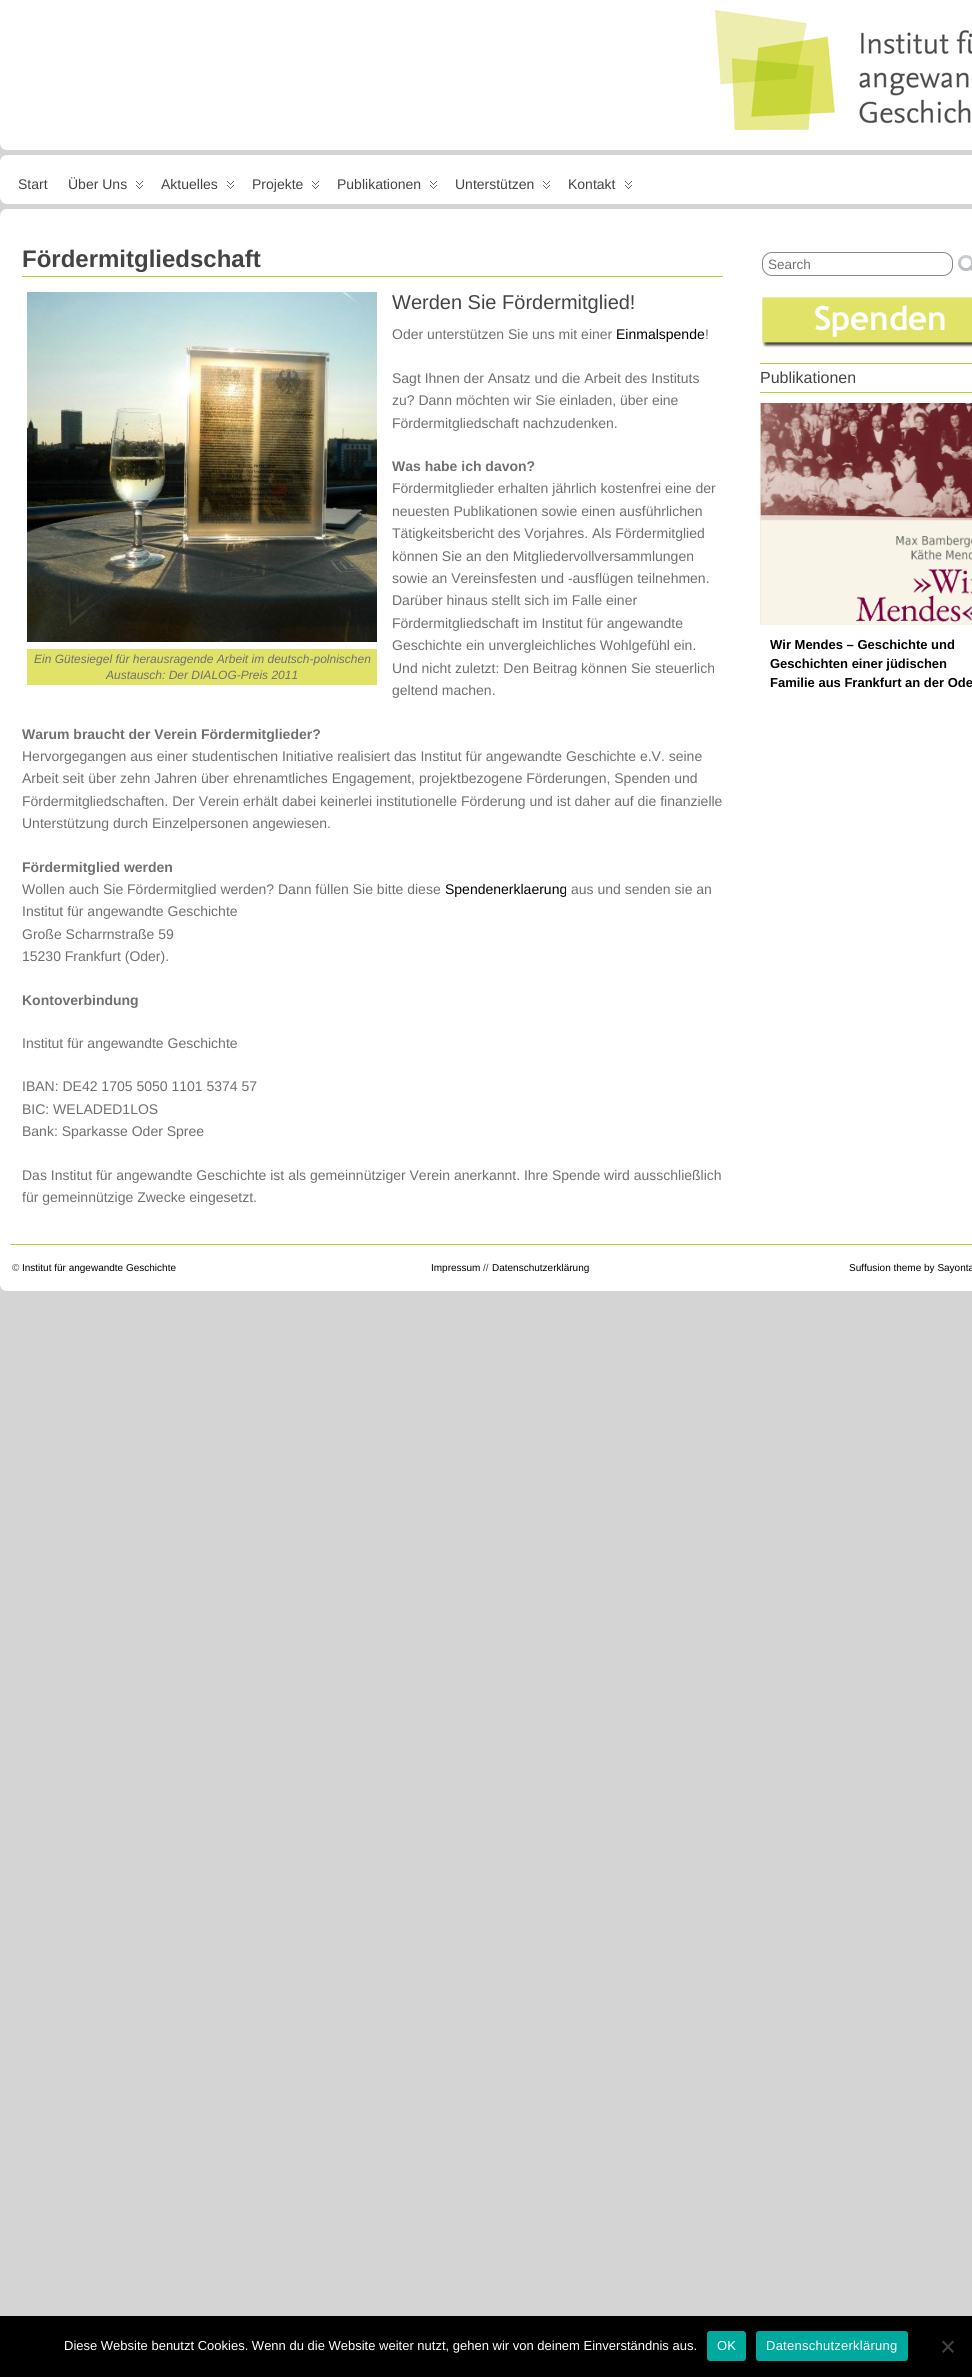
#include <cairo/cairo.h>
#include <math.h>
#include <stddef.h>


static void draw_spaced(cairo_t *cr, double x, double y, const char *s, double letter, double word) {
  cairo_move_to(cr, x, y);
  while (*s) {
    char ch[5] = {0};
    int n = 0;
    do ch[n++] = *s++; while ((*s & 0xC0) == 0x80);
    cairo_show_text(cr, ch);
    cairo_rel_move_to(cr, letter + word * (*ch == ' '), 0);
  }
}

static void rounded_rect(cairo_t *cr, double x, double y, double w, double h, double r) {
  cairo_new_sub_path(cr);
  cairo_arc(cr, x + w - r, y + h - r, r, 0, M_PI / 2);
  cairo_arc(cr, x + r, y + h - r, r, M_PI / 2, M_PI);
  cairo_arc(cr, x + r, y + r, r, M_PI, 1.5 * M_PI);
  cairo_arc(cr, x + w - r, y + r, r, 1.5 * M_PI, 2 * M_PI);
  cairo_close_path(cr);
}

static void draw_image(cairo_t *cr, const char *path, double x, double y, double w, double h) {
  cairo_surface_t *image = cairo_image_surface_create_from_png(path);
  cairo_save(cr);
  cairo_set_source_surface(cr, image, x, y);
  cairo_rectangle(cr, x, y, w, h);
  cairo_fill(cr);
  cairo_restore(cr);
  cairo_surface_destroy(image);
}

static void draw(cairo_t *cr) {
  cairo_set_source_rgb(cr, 212 / 255.0, 212 / 255.0, 212 / 255.0);
  cairo_paint(cr);
  cairo_set_source_rgb(cr, 1, 1, 1);
  cairo_new_path(cr);
  cairo_move_to(cr, 0, 0);
  cairo_line_to(cr, 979, 0);
  cairo_line_to(cr, 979, 143);
  cairo_curve_to(cr, 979, 147, 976, 150, 972, 150);
  cairo_line_to(cr, 7, 150);
  cairo_curve_to(cr, 3, 150, 0, 147, 0, 143);
  cairo_close_path(cr);
  cairo_fill(cr);
  draw_image(cr, "images/1.png", 715, 10, 257, 120);
  rounded_rect(cr, 0, 155, 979, 49, 7);
  cairo_fill(cr);
  draw_image(cr, "images/2.png", 136, 181, 7, 8);
  draw_image(cr, "images/2.png", 227, 181, 7, 8);
  draw_image(cr, "images/2.png", 312, 181, 7, 8);
  draw_image(cr, "images/2.png", 430, 181, 7, 8);
  draw_image(cr, "images/2.png", 543, 181, 7, 8);
  draw_image(cr, "images/2.png", 625, 181, 7, 8);
  rounded_rect(cr, 0, 209, 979, 1082, 7);
  cairo_fill(cr);
  cairo_set_source_rgb(cr, 183 / 255.0, 206 / 255.0, 44 / 255.0);
  cairo_rectangle(cr, 22, 276, 701, 1);
  cairo_fill(cr);
  draw_image(cr, "images/3.png", 27, 292, 350, 350);
  cairo_set_source_rgb(cr, 225 / 255.0, 227 / 255.0, 104 / 255.0);
  cairo_rectangle(cr, 27, 649, 350, 36);
  cairo_fill(cr);
  rounded_rect(cr, 762.5, 252.5, 190, 23, 9.5);
  cairo_set_source_rgb(cr, 136 / 255.0, 136 / 255.0, 136 / 255.0);
  cairo_set_line_width(cr, 1);
  cairo_stroke(cr);
  draw_image(cr, "images/4.png", 958, 255, 14, 16);
  draw_image(cr, "images/5.png", 762, 297, 210, 51);
  cairo_set_source_rgb(cr, 183 / 255.0, 206 / 255.0, 44 / 255.0);
  cairo_rectangle(cr, 760, 363, 212, 1);
  cairo_fill(cr);
  cairo_rectangle(cr, 760, 392, 212, 1);
  cairo_fill(cr);
  draw_image(cr, "images/6.png", 760, 403, 212, 222);
  cairo_rectangle(cr, 10, 1244, 962, 1);
  cairo_fill(cr);
  cairo_set_source_rgb(cr, 0, 0, 0);
  cairo_rectangle(cr, 0, 2316, 972, 61);
  cairo_fill(cr);
  cairo_set_source_rgb(cr, 0, 169 / 255.0, 157 / 255.0);
  rounded_rect(cr, 707, 2331, 39, 30, 3);
  cairo_fill(cr);
  rounded_rect(cr, 756, 2331, 152, 30, 3);
  cairo_fill(cr);
  cairo_set_source_rgb(cr, 64 / 255.0, 64 / 255.0, 64 / 255.0);
  cairo_new_path(cr);
  cairo_move_to(cr, 952.5, 2340.5);
  cairo_line_to(cr, 954, 2342);
  cairo_line_to(cr, 943.5, 2353);
  cairo_line_to(cr, 942, 2351.5);
  cairo_close_path(cr);
  cairo_fill(cr);
  cairo_new_path(cr);
  cairo_move_to(cr, 942, 2342);
  cairo_line_to(cr, 943.5, 2340.5);
  cairo_line_to(cr, 954, 2351.5);
  cairo_line_to(cr, 952.5, 2353);
  cairo_close_path(cr);
  cairo_fill(cr);
  cairo_select_font_face(cr, "Liberation Sans", CAIRO_FONT_SLANT_NORMAL, CAIRO_FONT_WEIGHT_NORMAL);
  cairo_set_font_size(cr, 14);
  cairo_set_source_rgb(cr, 68 / 255.0, 68 / 255.0, 68 / 255.0);
  cairo_move_to(cr, 18, 189);
  cairo_show_text(cr, "Start");
  cairo_move_to(cr, 68, 189);
  cairo_show_text(cr, "Über Uns");
  cairo_move_to(cr, 161, 189);
  cairo_show_text(cr, "Aktuelles");
  cairo_move_to(cr, 252, 189);
  cairo_show_text(cr, "Projekte");
  cairo_move_to(cr, 337, 189);
  cairo_show_text(cr, "Publikationen");
  cairo_move_to(cr, 455, 189);
  cairo_show_text(cr, "Unterstützen");
  cairo_move_to(cr, 568, 189);
  cairo_show_text(cr, "Kontakt");
  cairo_select_font_face(cr, "Liberation Sans", CAIRO_FONT_SLANT_NORMAL, CAIRO_FONT_WEIGHT_BOLD);
  cairo_set_font_size(cr, 24);
  cairo_move_to(cr, 22, 267);
  cairo_show_text(cr, "Fördermitgliedschaft");
  cairo_select_font_face(cr, "Liberation Sans", CAIRO_FONT_SLANT_NORMAL, CAIRO_FONT_WEIGHT_NORMAL);
  cairo_set_font_size(cr, 20);
  cairo_move_to(cr, 392, 309);
  cairo_show_text(cr, "Werden Sie Fördermitglied!");
  cairo_set_font_size(cr, 14);
  cairo_set_source_rgb(cr, 112 / 255.0, 112 / 255.0, 112 / 255.0);
  cairo_move_to(cr, 392, 339);
  cairo_show_text(cr, "Oder unterstützen Sie uns mit einer");
  cairo_set_source_rgb(cr, 0, 0, 0);
  cairo_move_to(cr, 616, 339);
  cairo_show_text(cr, "Einmalspende");
  cairo_set_source_rgb(cr, 112 / 255.0, 112 / 255.0, 112 / 255.0);
  cairo_move_to(cr, 705, 339);
  cairo_show_text(cr, "!");
  cairo_move_to(cr, 392, 383);
  cairo_show_text(cr, "Sagt Ihnen der Ansatz und die Arbeit des Instituts");
  cairo_move_to(cr, 392, 405);
  cairo_show_text(cr, "zu? Dann möchten wir Sie einladen, über eine");
  cairo_move_to(cr, 392, 428);
  cairo_show_text(cr, "Fördermitgliedschaft nachzudenken.");
  cairo_select_font_face(cr, "Liberation Sans", CAIRO_FONT_SLANT_ITALIC, CAIRO_FONT_WEIGHT_NORMAL);
  cairo_set_font_size(cr, 12);
  cairo_move_to(cr, 34, 663);
  cairo_show_text(cr, "Ein Gütesiegel für herausragende Arbeit im deutsch-polnischen");
  cairo_move_to(cr, 106, 679);
  cairo_show_text(cr, "Austausch: Der DIALOG-Preis 2011");
  cairo_select_font_face(cr, "Liberation Sans", CAIRO_FONT_SLANT_NORMAL, CAIRO_FONT_WEIGHT_BOLD);
  cairo_set_font_size(cr, 14);
  cairo_move_to(cr, 392, 471);
  cairo_show_text(cr, "Was habe ich davon?");
  cairo_select_font_face(cr, "Liberation Sans", CAIRO_FONT_SLANT_NORMAL, CAIRO_FONT_WEIGHT_NORMAL);
  cairo_move_to(cr, 392, 493);
  cairo_show_text(cr, "Fördermitglieder erhalten jährlich kostenfrei eine der");
  cairo_move_to(cr, 392, 516);
  cairo_show_text(cr, "neuesten Publikationen sowie einen ausführlichen");
  cairo_move_to(cr, 392, 538);
  cairo_show_text(cr, "Tätigkeitsbericht des Vorjahres. Als Fördermitglied");
  cairo_move_to(cr, 392, 561);
  cairo_show_text(cr, "können Sie an den Mitgliedervollversammlungen");
  cairo_move_to(cr, 392, 583);
  cairo_show_text(cr, "sowie an Vereinsfesten und -ausflügen teilnehmen.");
  cairo_move_to(cr, 392, 605);
  cairo_show_text(cr, "Darüber hinaus stellt sich im Falle einer");
  cairo_move_to(cr, 392, 628);
  cairo_show_text(cr, "Fördermitgliedschaft im Institut für angewandte");
  cairo_move_to(cr, 392, 650);
  cairo_show_text(cr, "Geschichte ein unvergleichliches Wohlgefühl ein.");
  cairo_move_to(cr, 392, 673);
  cairo_show_text(cr, "Und nicht zuletzt: Den Beitrag können Sie steuerlich");
  cairo_move_to(cr, 392, 695);
  cairo_show_text(cr, "geltend machen.");
  cairo_select_font_face(cr, "Liberation Sans", CAIRO_FONT_SLANT_NORMAL, CAIRO_FONT_WEIGHT_BOLD);
  cairo_move_to(cr, 22, 739);
  cairo_show_text(cr, "Warum braucht der Verein Fördermitglieder?");
  cairo_select_font_face(cr, "Liberation Sans", CAIRO_FONT_SLANT_NORMAL, CAIRO_FONT_WEIGHT_NORMAL);
  cairo_move_to(cr, 22, 761);
  cairo_show_text(cr, "Hervorgegangen aus einer studentischen Initiative realisiert das Institut für angewandte Geschichte e.V. seine");
  cairo_move_to(cr, 22, 783);
  cairo_show_text(cr, "Arbeit seit über zehn Jahren über ehrenamtliches Engagement, projektbezogene Förderungen, Spenden und");
  cairo_move_to(cr, 22, 806);
  cairo_show_text(cr, "Fördermitgliedschaften. Der Verein erhält dabei keinerlei institutionelle Förderung und ist daher auf die finanzielle");
  cairo_move_to(cr, 22, 828);
  cairo_show_text(cr, "Unterstützung durch Einzelpersonen angewiesen.");
  cairo_select_font_face(cr, "Liberation Sans", CAIRO_FONT_SLANT_NORMAL, CAIRO_FONT_WEIGHT_BOLD);
  cairo_move_to(cr, 22, 872);
  cairo_show_text(cr, "Fördermitglied werden");
  cairo_select_font_face(cr, "Liberation Sans", CAIRO_FONT_SLANT_NORMAL, CAIRO_FONT_WEIGHT_NORMAL);
  cairo_move_to(cr, 22, 894);
  cairo_show_text(cr, "Wollen auch Sie Fördermitglied werden? Dann füllen Sie bitte diese");
  cairo_set_source_rgb(cr, 0, 0, 0);
  cairo_move_to(cr, 445, 894);
  cairo_show_text(cr, "Spendenerklaerung");
  cairo_set_source_rgb(cr, 112 / 255.0, 112 / 255.0, 112 / 255.0);
  cairo_move_to(cr, 571, 894);
  cairo_show_text(cr, "aus und senden sie an");
  cairo_move_to(cr, 22, 916);
  cairo_show_text(cr, "Institut für angewandte Geschichte");
  cairo_move_to(cr, 22, 939);
  cairo_show_text(cr, "Große Scharrnstraße 59");
  cairo_move_to(cr, 22, 961);
  cairo_show_text(cr, "15230 Frankfurt (Oder).");
  cairo_select_font_face(cr, "Liberation Sans", CAIRO_FONT_SLANT_NORMAL, CAIRO_FONT_WEIGHT_BOLD);
  cairo_move_to(cr, 22, 1005);
  cairo_show_text(cr, "Kontoverbindung");
  cairo_select_font_face(cr, "Liberation Sans", CAIRO_FONT_SLANT_NORMAL, CAIRO_FONT_WEIGHT_NORMAL);
  cairo_move_to(cr, 22, 1048);
  cairo_show_text(cr, "Institut für angewandte Geschichte");
  cairo_move_to(cr, 22, 1091);
  cairo_show_text(cr, "IBAN: DE42 1705 5050 1101 5374 57");
  cairo_move_to(cr, 22, 1114);
  cairo_show_text(cr, "BIC: WELADED1LOS");
  cairo_move_to(cr, 22, 1136);
  cairo_show_text(cr, "Bank: Sparkasse Oder Spree");
  cairo_move_to(cr, 22, 1180);
  cairo_show_text(cr, "Das Institut für angewandte Geschichte ist als gemeinnütziger Verein anerkannt. Ihre Spende wird ausschließlich");
  cairo_move_to(cr, 22, 1202);
  cairo_show_text(cr, "für gemeinnützige Zwecke eingesetzt.");
  cairo_set_font_size(cr, 13.5);
  cairo_move_to(cr, 768, 269);
  cairo_show_text(cr, "Search");
  cairo_set_font_size(cr, 16);
  cairo_set_source_rgb(cr, 68 / 255.0, 68 / 255.0, 68 / 255.0);
  cairo_move_to(cr, 760, 383);
  cairo_show_text(cr, "Publikationen");
  cairo_select_font_face(cr, "Liberation Sans", CAIRO_FONT_SLANT_NORMAL, CAIRO_FONT_WEIGHT_BOLD);
  cairo_set_font_size(cr, 13);
  cairo_set_source_rgb(cr, 0, 0, 0);
  cairo_move_to(cr, 770, 649);
  cairo_show_text(cr, "Wir Mendes – Geschichte und");
  cairo_move_to(cr, 770, 668);
  cairo_show_text(cr, "Geschichten einer jüdischen");
  cairo_move_to(cr, 770, 687);
  cairo_show_text(cr, "Familie aus Frankfurt an der Ode");
  cairo_select_font_face(cr, "Liberation Sans", CAIRO_FONT_SLANT_NORMAL, CAIRO_FONT_WEIGHT_NORMAL);
  cairo_set_font_size(cr, 10);
  cairo_set_source_rgb(cr, 68 / 255.0, 68 / 255.0, 68 / 255.0);
  cairo_move_to(cr, 12, 1271);
  cairo_show_text(cr, "©");
  cairo_set_source_rgb(cr, 0, 0, 0);
  cairo_move_to(cr, 22, 1271);
  cairo_show_text(cr, "Institut für angewandte Geschichte");
  cairo_move_to(cr, 431, 1271);
  cairo_show_text(cr, "Impressum");
  cairo_set_source_rgb(cr, 68 / 255.0, 68 / 255.0, 68 / 255.0);
  cairo_move_to(cr, 483, 1271);
  cairo_show_text(cr, "//");
  cairo_set_source_rgb(cr, 0, 0, 0);
  cairo_move_to(cr, 492, 1271);
  cairo_show_text(cr, "Datenschutzerklärung");
  cairo_move_to(cr, 849, 1271);
  cairo_show_text(cr, "Suffusion theme by Sayonta");
  cairo_set_font_size(cr, 13);
  cairo_set_source_rgb(cr, 1, 1, 1);
  cairo_move_to(cr, 64, 2350);
  cairo_show_text(cr, "Diese Website benutzt Cookies. Wenn du die Website weiter nutzt, gehen wir von deinem Einverständnis aus.");
  draw_spaced(cr, 717, 2350, "OK", 0.25, 0);
  draw_spaced(cr, 766, 2350, "Datenschutzerklärung", 0.25, 0);
}

int main(void) {
  cairo_surface_t *surface = cairo_image_surface_create(CAIRO_FORMAT_RGB24, 972, 2377);
  cairo_t *cr = cairo_create(surface);
  cairo_font_options_t *options = cairo_font_options_create();
  cairo_font_options_set_hint_metrics(options, CAIRO_HINT_METRICS_OFF);
  cairo_font_options_set_hint_style(options, CAIRO_HINT_STYLE_NONE);
  cairo_set_font_options(cr, options);
  cairo_set_miter_limit(cr, 4);
  draw(cr);
  cairo_surface_write_to_png(surface, "out.png");
  cairo_font_options_destroy(options);
  cairo_destroy(cr);
  cairo_surface_destroy(surface);
  return 0;
}
